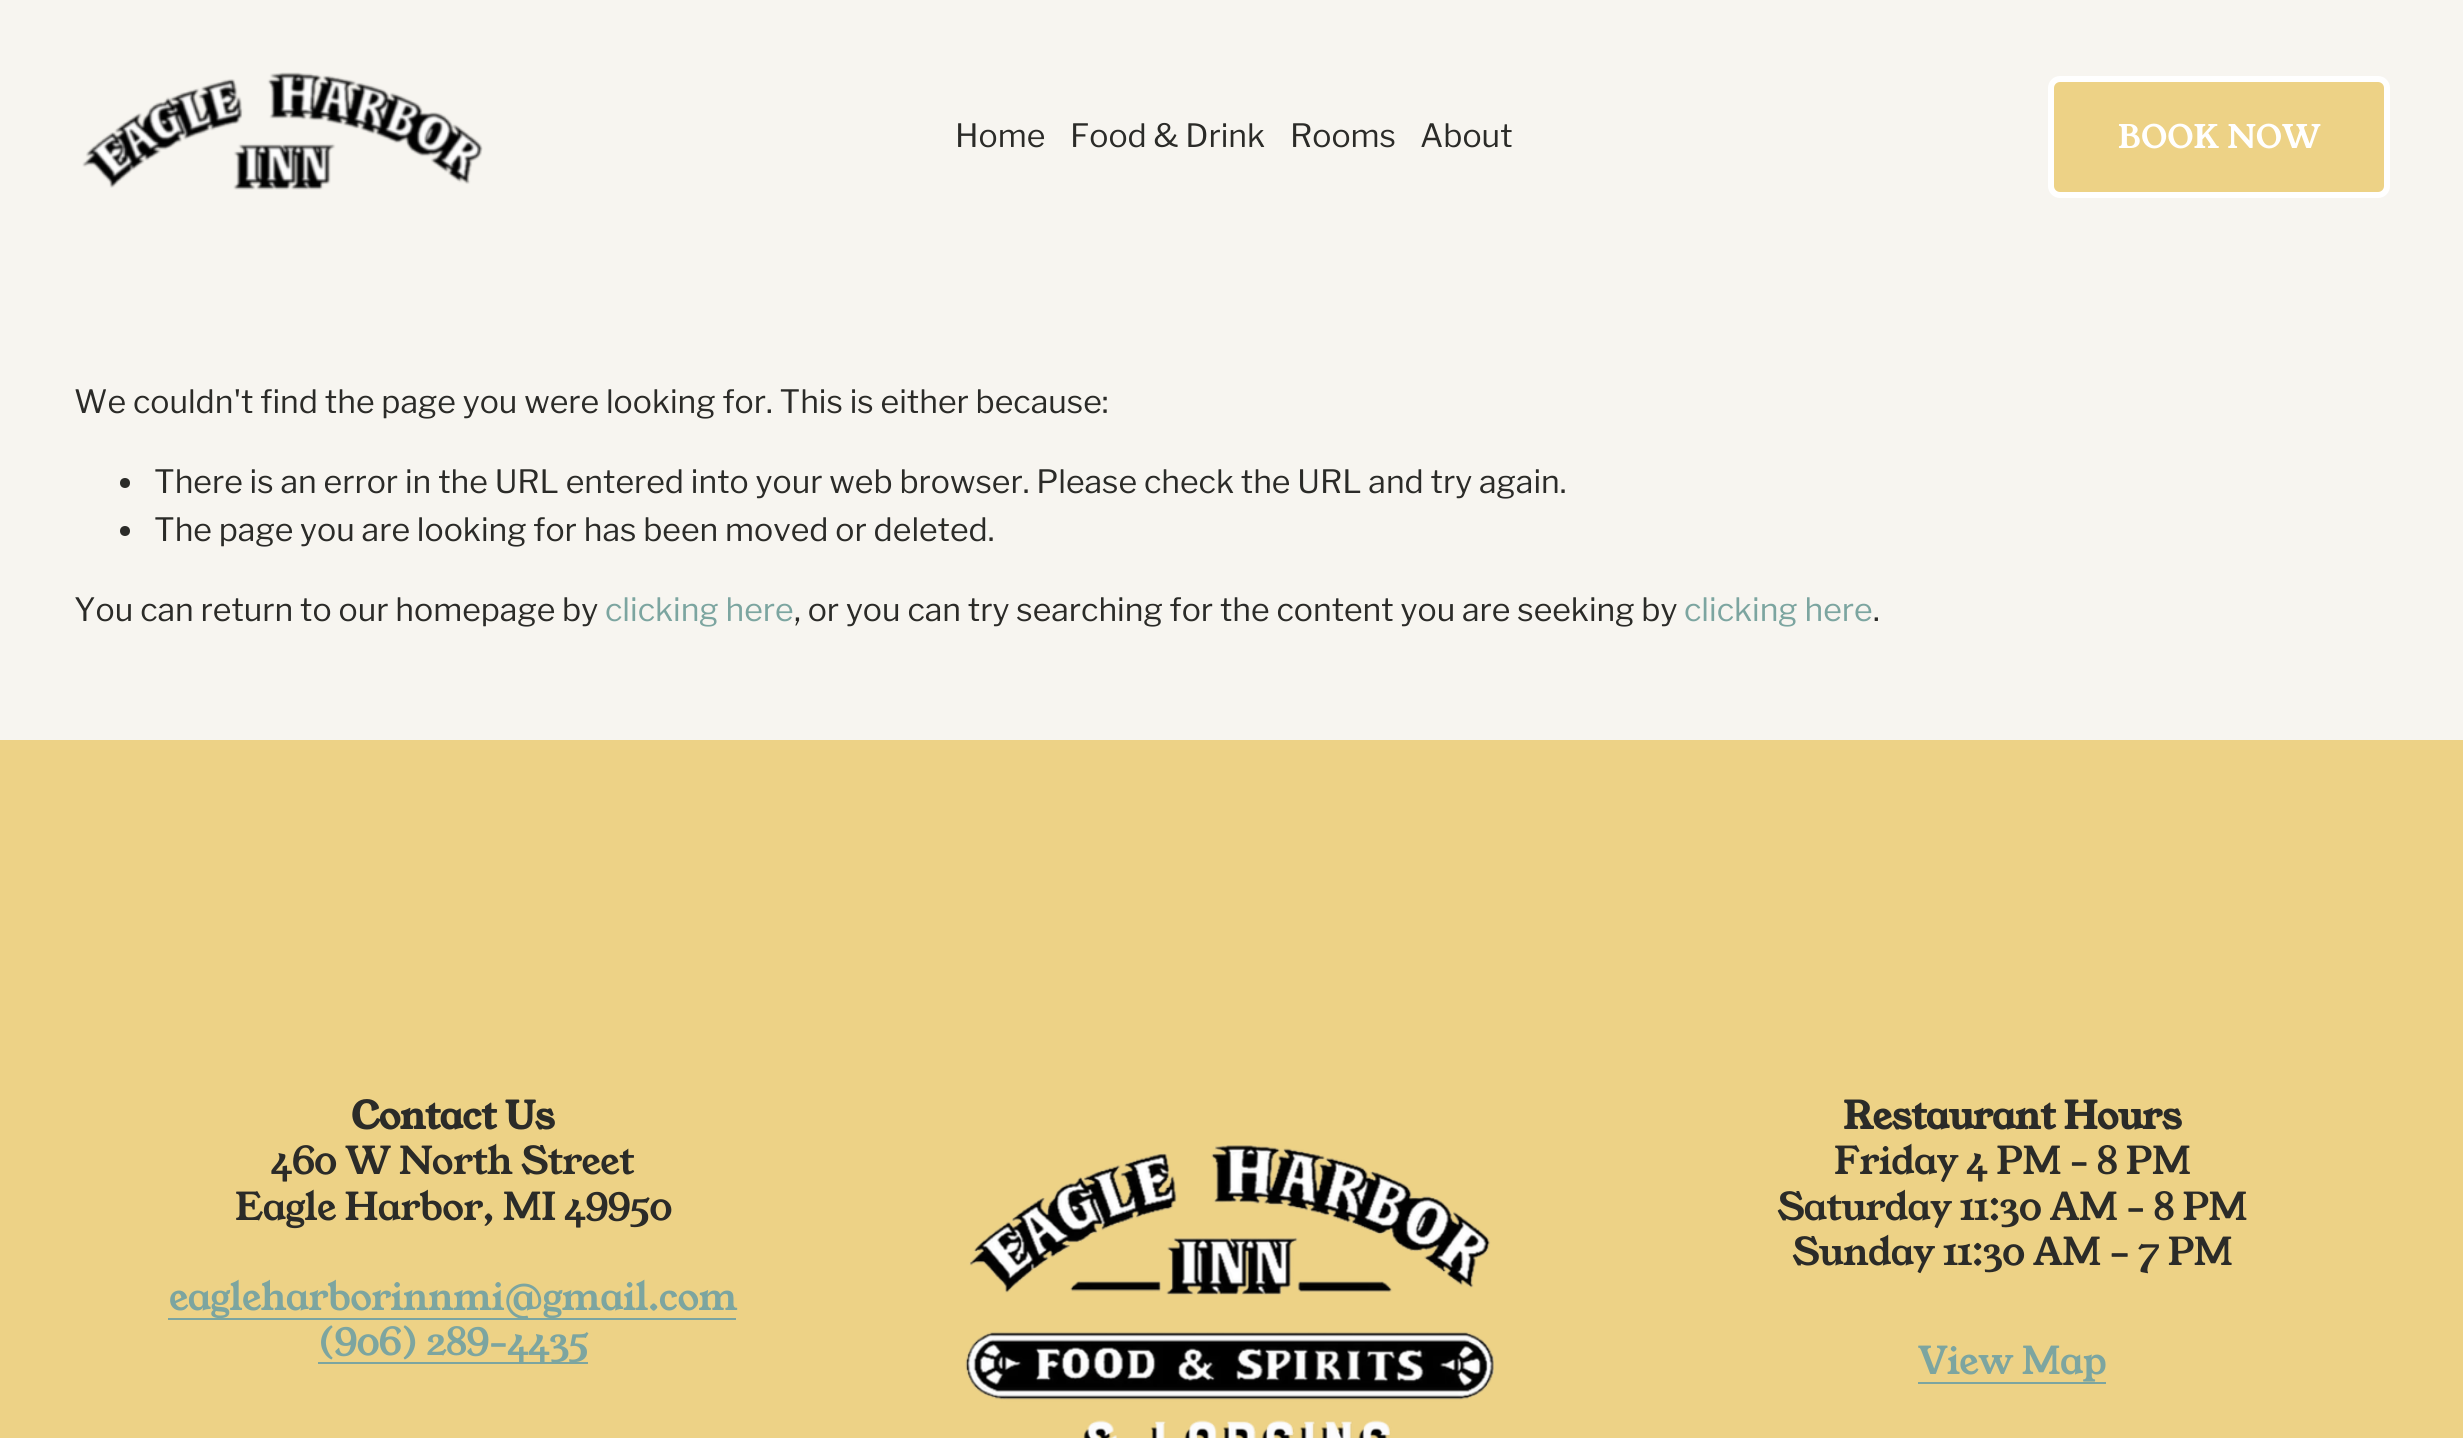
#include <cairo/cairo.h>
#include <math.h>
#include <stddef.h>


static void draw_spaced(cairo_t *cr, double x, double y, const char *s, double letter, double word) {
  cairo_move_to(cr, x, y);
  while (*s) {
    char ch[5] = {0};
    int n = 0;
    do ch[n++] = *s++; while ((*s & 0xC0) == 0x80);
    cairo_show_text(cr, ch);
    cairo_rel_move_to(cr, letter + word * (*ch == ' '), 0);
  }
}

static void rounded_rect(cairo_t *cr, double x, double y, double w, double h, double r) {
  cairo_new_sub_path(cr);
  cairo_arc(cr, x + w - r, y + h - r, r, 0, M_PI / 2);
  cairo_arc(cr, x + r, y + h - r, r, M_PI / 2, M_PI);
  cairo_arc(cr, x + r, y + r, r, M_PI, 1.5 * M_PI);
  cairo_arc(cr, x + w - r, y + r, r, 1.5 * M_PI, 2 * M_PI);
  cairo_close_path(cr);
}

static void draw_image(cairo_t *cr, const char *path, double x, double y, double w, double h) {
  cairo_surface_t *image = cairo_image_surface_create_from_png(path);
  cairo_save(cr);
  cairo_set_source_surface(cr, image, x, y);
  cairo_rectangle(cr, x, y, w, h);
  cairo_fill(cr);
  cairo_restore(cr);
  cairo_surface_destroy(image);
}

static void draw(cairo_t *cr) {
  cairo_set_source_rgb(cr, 247 / 255.0, 245 / 255.0, 240 / 255.0);
  cairo_paint(cr);
  draw_image(cr, "images/1.png", 82, 72, 401, 118);
  cairo_set_source_rgb(cr, 237 / 255.0, 210 / 255.0, 134 / 255.0);
  rounded_rect(cr, 2051, 79, 336, 116, 9);
  cairo_fill_preserve(cr);
  cairo_set_source_rgb(cr, 1, 1, 1);
  cairo_set_line_width(cr, 6);
  cairo_stroke(cr);
  cairo_set_source_rgb(cr, 43 / 255.0, 43 / 255.0, 40 / 255.0);
  cairo_arc(cr, 125, 483, 5, 0, 2 * M_PI);
  cairo_fill(cr);
  cairo_arc(cr, 125, 531, 5, 0, 2 * M_PI);
  cairo_fill(cr);
  cairo_set_source_rgb(cr, 237 / 255.0, 210 / 255.0, 134 / 255.0);
  cairo_rectangle(cr, 0, 740, 2463, 698);
  cairo_fill(cr);
  cairo_set_source_rgb(cr, 124 / 255.0, 165 / 255.0, 160 / 255.0);
  cairo_rectangle(cr, 168, 1318, 568, 2);
  cairo_fill(cr);
  cairo_rectangle(cr, 318, 1362, 270, 2);
  cairo_fill(cr);
  draw_image(cr, "images/2.png", 965, 1145, 529, 293);
  cairo_rectangle(cr, 1918, 1382, 188, 2);
  cairo_fill(cr);
  cairo_select_font_face(cr, "Libre Franklin", CAIRO_FONT_SLANT_NORMAL, CAIRO_FONT_WEIGHT_NORMAL);
  cairo_set_font_size(cr, 32);
  cairo_set_source_rgb(cr, 43 / 255.0, 43 / 255.0, 40 / 255.0);
  cairo_move_to(cr, 955, 147);
  cairo_show_text(cr, "Home");
  cairo_move_to(cr, 1070, 147);
  cairo_show_text(cr, "Food & Drink");
  cairo_move_to(cr, 1290, 147);
  cairo_show_text(cr, "Rooms");
  cairo_move_to(cr, 1420, 147);
  cairo_show_text(cr, "About");
  cairo_select_font_face(cr, "Young Serif", CAIRO_FONT_SLANT_NORMAL, CAIRO_FONT_WEIGHT_NORMAL);
  cairo_set_source_rgb(cr, 1, 1, 1);
  cairo_move_to(cr, 2118, 148);
  cairo_show_text(cr, "BOOK NOW");
  cairo_select_font_face(cr, "Libre Franklin", CAIRO_FONT_SLANT_NORMAL, CAIRO_FONT_WEIGHT_NORMAL);
  cairo_set_source_rgb(cr, 43 / 255.0, 43 / 255.0, 40 / 255.0);
  cairo_move_to(cr, 74, 413);
  cairo_show_text(cr, "We couldn't find the page you were looking for. This is either because:");
  cairo_move_to(cr, 154, 493);
  cairo_show_text(cr, "There is an error in the URL entered into your web browser. Please check the URL and try again.");
  cairo_move_to(cr, 154, 541);
  cairo_show_text(cr, "The page you are looking for has been moved or deleted.");
  cairo_move_to(cr, 74, 621);
  cairo_show_text(cr, "You can return to our homepage by");
  cairo_set_source_rgb(cr, 124 / 255.0, 165 / 255.0, 160 / 255.0);
  cairo_move_to(cr, 605, 621);
  cairo_show_text(cr, "clicking here");
  cairo_set_source_rgb(cr, 43 / 255.0, 43 / 255.0, 40 / 255.0);
  cairo_move_to(cr, 794, 621);
  cairo_show_text(cr, ", or you can try searching for the content you are seeking by");
  cairo_set_source_rgb(cr, 124 / 255.0, 165 / 255.0, 160 / 255.0);
  cairo_move_to(cr, 1684, 621);
  cairo_show_text(cr, "clicking here");
  cairo_set_source_rgb(cr, 43 / 255.0, 43 / 255.0, 40 / 255.0);
  cairo_move_to(cr, 1873, 621);
  cairo_show_text(cr, ".");
  cairo_select_font_face(cr, "Young Serif", CAIRO_FONT_SLANT_NORMAL, CAIRO_FONT_WEIGHT_BOLD);
  cairo_set_font_size(cr, 37.9);
  draw_spaced(cr, 351, 1129, "Contact Us", -0.75, 0);
  cairo_select_font_face(cr, "Young Serif", CAIRO_FONT_SLANT_NORMAL, CAIRO_FONT_WEIGHT_NORMAL);
  draw_spaced(cr, 271, 1174, "460 W North Street", -0.75, 0);
  draw_spaced(cr, 235, 1220, "Eagle Harbor, MI 49950", -0.75, 0);
  cairo_set_source_rgb(cr, 124 / 255.0, 165 / 255.0, 160 / 255.0);
  draw_spaced(cr, 169, 1310, "eagleharborinnmi@gmail.com", -0.75, 0);
  draw_spaced(cr, 318, 1355, "(906) 289-4435", -0.75, 0);
  cairo_select_font_face(cr, "Young Serif", CAIRO_FONT_SLANT_NORMAL, CAIRO_FONT_WEIGHT_BOLD);
  cairo_set_source_rgb(cr, 43 / 255.0, 43 / 255.0, 40 / 255.0);
  draw_spaced(cr, 1843, 1129, "Restaurant Hours", -0.75, 0);
  cairo_select_font_face(cr, "Young Serif", CAIRO_FONT_SLANT_NORMAL, CAIRO_FONT_WEIGHT_NORMAL);
  draw_spaced(cr, 1834, 1174, "Friday 4 PM - 8 PM", -0.75, 0);
  draw_spaced(cr, 1777, 1220, "Saturday 11:30 AM - 8 PM", -0.75, 0);
  draw_spaced(cr, 1792, 1265, "Sunday 11:30 AM – 7 PM", -0.75, 0);
  cairo_set_source_rgb(cr, 124 / 255.0, 165 / 255.0, 160 / 255.0);
  draw_spaced(cr, 1918, 1374, "View Map", -0.75, 0);
}

int main(void) {
  cairo_surface_t *surface = cairo_image_surface_create(CAIRO_FORMAT_RGB24, 2463, 1438);
  cairo_t *cr = cairo_create(surface);
  cairo_font_options_t *options = cairo_font_options_create();
  cairo_font_options_set_hint_metrics(options, CAIRO_HINT_METRICS_OFF);
  cairo_font_options_set_hint_style(options, CAIRO_HINT_STYLE_NONE);
  cairo_set_font_options(cr, options);
  cairo_set_miter_limit(cr, 4);
  draw(cr);
  cairo_surface_write_to_png(surface, "out.png");
  cairo_font_options_destroy(options);
  cairo_destroy(cr);
  cairo_surface_destroy(surface);
  return 0;
}
